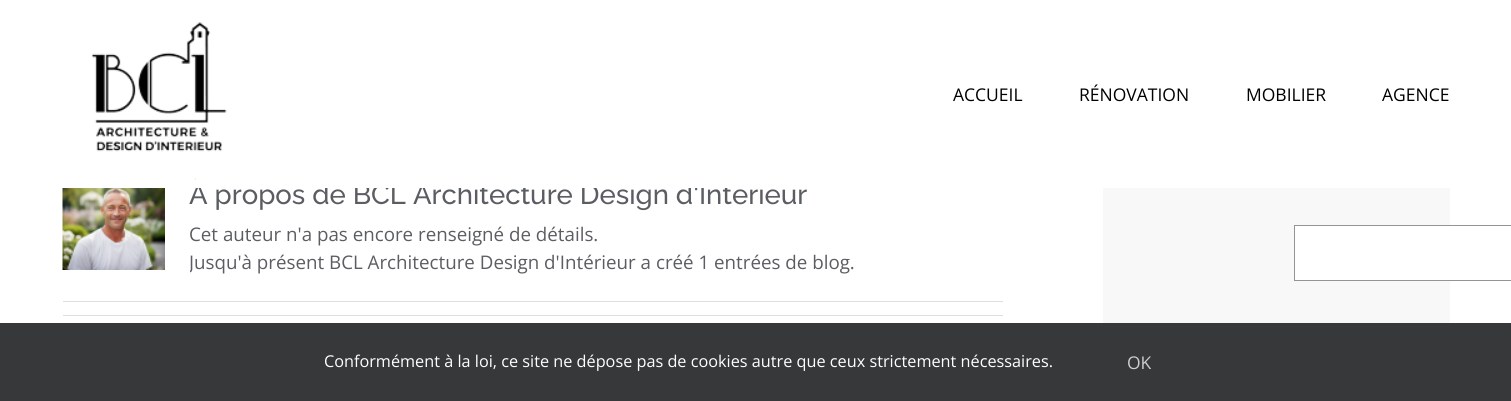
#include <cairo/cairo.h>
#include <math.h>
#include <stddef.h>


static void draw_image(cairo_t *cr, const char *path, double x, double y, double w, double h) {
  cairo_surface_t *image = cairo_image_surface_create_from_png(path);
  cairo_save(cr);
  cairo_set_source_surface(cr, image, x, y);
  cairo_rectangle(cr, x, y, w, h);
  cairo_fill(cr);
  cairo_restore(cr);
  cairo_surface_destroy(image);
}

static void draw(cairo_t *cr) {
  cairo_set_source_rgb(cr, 1, 1, 1);
  cairo_paint(cr);
  draw_image(cr, "images/1.png", 91, 22, 136, 130);
  draw_image(cr, "images/2.png", 62, 188, 103, 82);
  cairo_set_source_rgb(cr, 224 / 255.0, 222 / 255.0, 222 / 255.0);
  cairo_rectangle(cr, 63, 301, 940, 1);
  cairo_fill(cr);
  cairo_rectangle(cr, 63, 315, 940, 1);
  cairo_fill(cr);
  cairo_set_source_rgb(cr, 248 / 255.0, 248 / 255.0, 248 / 255.0);
  cairo_rectangle(cr, 1103, 188, 347, 135);
  cairo_fill(cr);
  cairo_set_source_rgb(cr, 1, 1, 1);
  cairo_rectangle(cr, 1295, 226, 155, 54);
  cairo_fill(cr);
  cairo_rectangle(cr, 1294.5, 225.5, 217, 55);
  cairo_set_source_rgb(cr, 148 / 255.0, 148 / 255.0, 148 / 255.0);
  cairo_set_line_width(cr, 1);
  cairo_stroke(cr);
  cairo_set_source_rgb(cr, 54 / 255.0, 56 / 255.0, 57 / 255.0);
  cairo_rectangle(cr, 0, 323, 1511, 78);
  cairo_fill(cr);
  cairo_select_font_face(cr, "Open Sans", CAIRO_FONT_SLANT_NORMAL, CAIRO_FONT_WEIGHT_NORMAL);
  cairo_set_font_size(cr, 17.5);
  cairo_set_source_rgb(cr, 0, 0, 0);
  cairo_move_to(cr, 953, 101);
  cairo_show_text(cr, "ACCUEIL");
  cairo_move_to(cr, 1079, 101);
  cairo_show_text(cr, "RÉNOVATION");
  cairo_move_to(cr, 1246, 101);
  cairo_show_text(cr, "MOBILIER");
  cairo_move_to(cr, 1382, 101);
  cairo_show_text(cr, "AGENCE");
  cairo_select_font_face(cr, "Raleway Thin", CAIRO_FONT_SLANT_NORMAL, CAIRO_FONT_WEIGHT_NORMAL);
  cairo_set_font_size(cr, 27.5);
  cairo_set_source_rgb(cr, 90 / 255.0, 93 / 255.0, 98 / 255.0);
  cairo_move_to(cr, 189, 204);
  cairo_show_text(cr, "À propos de BCL Architecture Design d'Intérieur");
  cairo_set_source_rgb(cr, 1, 1, 1);
  cairo_rectangle(cr, 196, 178, 567, 10);
  cairo_fill(cr);
  cairo_select_font_face(cr, "Open Sans", CAIRO_FONT_SLANT_NORMAL, CAIRO_FONT_WEIGHT_NORMAL);
  cairo_set_font_size(cr, 18.75);
  cairo_set_source_rgb(cr, 90 / 255.0, 93 / 255.0, 98 / 255.0);
  cairo_move_to(cr, 189, 241);
  cairo_show_text(cr, "Cet auteur n'a pas encore renseigné de détails.");
  cairo_save(cr);
  cairo_rectangle(cr, 190, 168, 813, 108);
  cairo_clip(cr);
  cairo_move_to(cr, 189, 269);
  cairo_show_text(cr, "Jusqu'à présent BCL Architecture Design d'Intérieur a créé 1 entrées de blog.");
  cairo_restore(cr);
  cairo_set_font_size(cr, 16.25);
  cairo_set_source_rgb(cr, 1, 1, 1);
  cairo_move_to(cr, 324, 367);
  cairo_show_text(cr, "Conformément à la loi, ce site ne dépose pas de cookies autre que ceux strictement nécessaires.");
  cairo_set_font_size(cr, 17.5);
  cairo_set_source_rgb(cr, 205 / 255.0, 205 / 255.0, 206 / 255.0);
  cairo_move_to(cr, 1127, 369);
  cairo_show_text(cr, "OK");
}

int main(void) {
  cairo_surface_t *surface = cairo_image_surface_create(CAIRO_FORMAT_RGB24, 1511, 401);
  cairo_t *cr = cairo_create(surface);
  cairo_font_options_t *options = cairo_font_options_create();
  cairo_font_options_set_hint_metrics(options, CAIRO_HINT_METRICS_OFF);
  cairo_font_options_set_hint_style(options, CAIRO_HINT_STYLE_NONE);
  cairo_set_font_options(cr, options);
  cairo_set_miter_limit(cr, 4);
  draw(cr);
  cairo_surface_write_to_png(surface, "out.png");
  cairo_font_options_destroy(options);
  cairo_destroy(cr);
  cairo_surface_destroy(surface);
  return 0;
}
